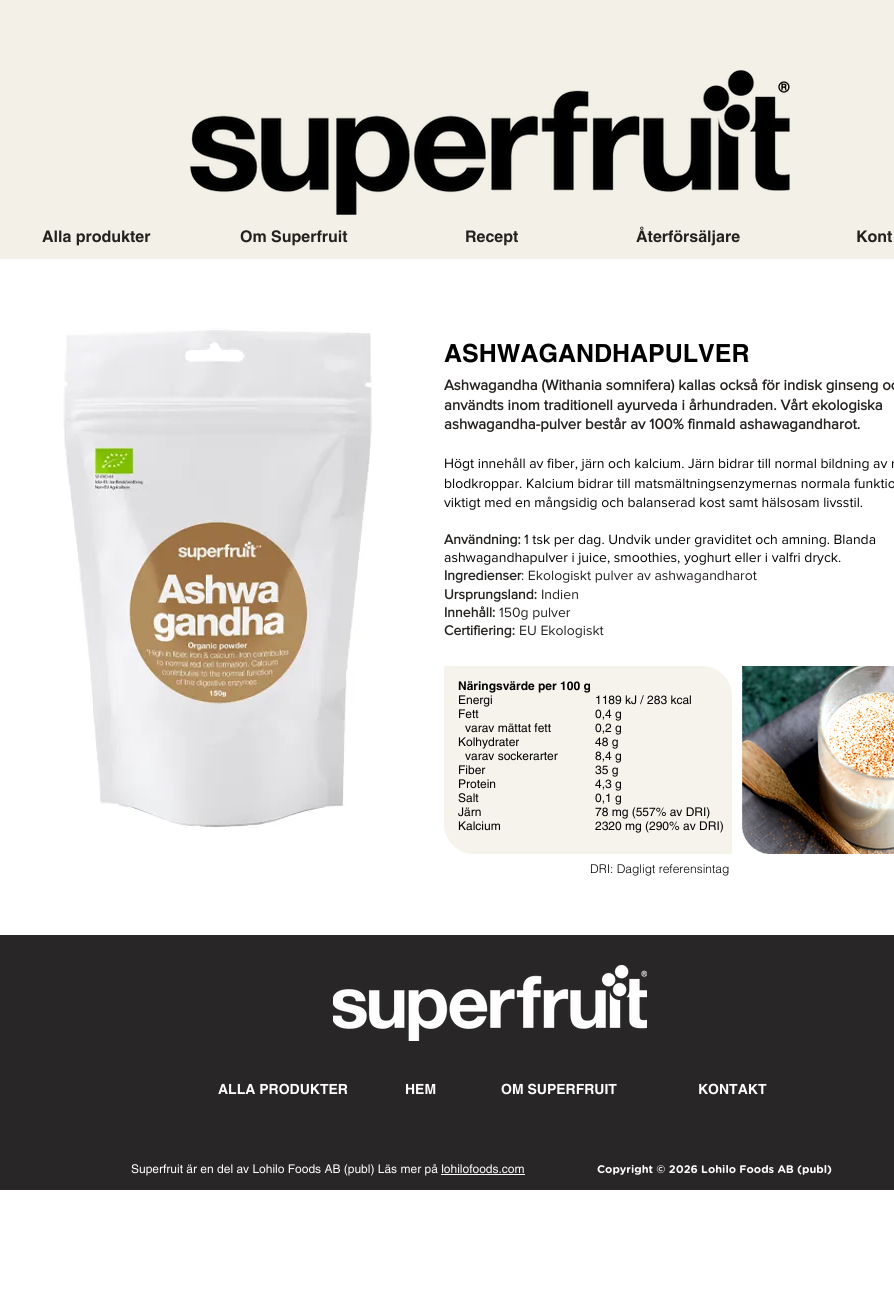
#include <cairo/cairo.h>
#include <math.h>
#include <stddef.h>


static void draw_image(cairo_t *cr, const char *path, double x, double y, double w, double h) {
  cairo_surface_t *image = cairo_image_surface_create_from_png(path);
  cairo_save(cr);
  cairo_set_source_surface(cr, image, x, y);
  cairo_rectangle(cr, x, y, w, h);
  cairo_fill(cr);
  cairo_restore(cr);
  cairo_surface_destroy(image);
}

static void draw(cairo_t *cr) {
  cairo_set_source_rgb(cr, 1, 1, 1);
  cairo_paint(cr);
  cairo_set_source_rgb(cr, 243 / 255.0, 240 / 255.0, 232 / 255.0);
  cairo_rectangle(cr, 0, 0, 894, 259);
  cairo_fill(cr);
  draw_image(cr, "images/1.png", 190, 70, 600, 145);
  draw_image(cr, "images/2.png", 63, 328, 310, 500);
  cairo_set_source_rgb(cr, 246 / 255.0, 243 / 255.0, 237 / 255.0);
  cairo_new_path(cr);
  cairo_move_to(cr, 444, 666);
  cairo_line_to(cr, 702, 666);
  cairo_curve_to(cr, 718.5, 666, 732, 679.5, 732, 696);
  cairo_line_to(cr, 732, 854);
  cairo_line_to(cr, 474, 854);
  cairo_curve_to(cr, 457.5, 854, 444, 840.5, 444, 824);
  cairo_close_path(cr);
  cairo_fill(cr);
  draw_image(cr, "images/3.png", 742, 666, 152, 188);
  cairo_set_source_rgb(cr, 40 / 255.0, 38 / 255.0, 38 / 255.0);
  cairo_rectangle(cr, 0, 935, 894, 255);
  cairo_fill(cr);
  draw_image(cr, "images/4.png", 333, 965, 314, 76);
  cairo_set_source_rgb(cr, 1, 1, 1);
  cairo_rectangle(cr, 441, 1174, 84, 1);
  cairo_fill(cr);
  cairo_select_font_face(cr, "helvetica", CAIRO_FONT_SLANT_NORMAL, CAIRO_FONT_WEIGHT_BOLD);
  cairo_set_font_size(cr, 16);
  cairo_set_source_rgb(cr, 36 / 255.0, 33 / 255.0, 31 / 255.0);
  cairo_move_to(cr, 42, 242);
  cairo_show_text(cr, "Alla produkter");
  cairo_move_to(cr, 240, 242);
  cairo_show_text(cr, "Om Superfruit");
  cairo_move_to(cr, 465, 242);
  cairo_show_text(cr, "Recept");
  cairo_move_to(cr, 636, 242);
  cairo_show_text(cr, "Återförsäljare");
  cairo_move_to(cr, 856, 242);
  cairo_show_text(cr, "Kont");
  cairo_set_font_size(cr, 25);
  cairo_set_source_rgb(cr, 0, 0, 0);
  cairo_move_to(cr, 444, 362);
  cairo_show_text(cr, "ASHWAGANDHAPULVER");
  cairo_select_font_face(cr, "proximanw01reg", CAIRO_FONT_SLANT_NORMAL, CAIRO_FONT_WEIGHT_BOLD);
  cairo_set_font_size(cr, 15);
  cairo_set_source_rgb(cr, 36 / 255.0, 33 / 255.0, 31 / 255.0);
  cairo_move_to(cr, 444, 390);
  cairo_show_text(cr, "Ashwagandha (Withania somnifera) kallas också för indisk ginseng oc");
  cairo_move_to(cr, 444, 410);
  cairo_show_text(cr, "användts inom traditionell ayurveda i århundraden. Vårt ekologiska");
  cairo_move_to(cr, 444, 429);
  cairo_show_text(cr, "ashwagandha-pulver består av 100% finmald ashawagandharot.");
  cairo_select_font_face(cr, "proximanw01reg", CAIRO_FONT_SLANT_NORMAL, CAIRO_FONT_WEIGHT_NORMAL);
  cairo_set_font_size(cr, 14);
  cairo_set_source_rgb(cr, 0, 0, 0);
  cairo_move_to(cr, 444, 468);
  cairo_show_text(cr, "Högt innehåll av fiber, järn och kalcium. Järn bidrar till normal bildning av r");
  cairo_move_to(cr, 444, 488);
  cairo_show_text(cr, "blodkroppar. Kalcium bidrar till matsmältningsenzymernas normala funktio");
  cairo_move_to(cr, 444, 507);
  cairo_show_text(cr, "viktigt med en mångsidig och balanserad kost samt hälsosam livsstil.");
  cairo_select_font_face(cr, "proximanw01reg", CAIRO_FONT_SLANT_NORMAL, CAIRO_FONT_WEIGHT_BOLD);
  cairo_set_source_rgb(cr, 36 / 255.0, 33 / 255.0, 31 / 255.0);
  cairo_move_to(cr, 444, 544);
  cairo_show_text(cr, "Användning:");
  cairo_select_font_face(cr, "proximanw01reg", CAIRO_FONT_SLANT_NORMAL, CAIRO_FONT_WEIGHT_NORMAL);
  cairo_set_source_rgb(cr, 0, 0, 0);
  cairo_move_to(cr, 524, 544);
  cairo_show_text(cr, "1 tsk per dag. Undvik under graviditet och amning. Blanda");
  cairo_move_to(cr, 444, 562);
  cairo_show_text(cr, "ashwagandhapulver i juice, smoothies, yoghurt eller i valfri dryck.");
  cairo_select_font_face(cr, "proximanw01reg", CAIRO_FONT_SLANT_NORMAL, CAIRO_FONT_WEIGHT_BOLD);
  cairo_set_source_rgb(cr, 36 / 255.0, 33 / 255.0, 31 / 255.0);
  cairo_move_to(cr, 444, 580);
  cairo_show_text(cr, "Ingredienser");
  cairo_select_font_face(cr, "proximanw01reg", CAIRO_FONT_SLANT_NORMAL, CAIRO_FONT_WEIGHT_NORMAL);
  cairo_move_to(cr, 521, 580);
  cairo_show_text(cr, ": Ekologiskt pulver av ashwagandharot");
  cairo_select_font_face(cr, "proximanw01reg", CAIRO_FONT_SLANT_NORMAL, CAIRO_FONT_WEIGHT_BOLD);
  cairo_move_to(cr, 444, 599);
  cairo_show_text(cr, "Ursprungsland:");
  cairo_select_font_face(cr, "proximanw01reg", CAIRO_FONT_SLANT_NORMAL, CAIRO_FONT_WEIGHT_NORMAL);
  cairo_move_to(cr, 541, 599);
  cairo_show_text(cr, "Indien");
  cairo_select_font_face(cr, "proximanw01reg", CAIRO_FONT_SLANT_NORMAL, CAIRO_FONT_WEIGHT_BOLD);
  cairo_move_to(cr, 444, 617);
  cairo_show_text(cr, "Innehåll:");
  cairo_select_font_face(cr, "proximanw01reg", CAIRO_FONT_SLANT_NORMAL, CAIRO_FONT_WEIGHT_NORMAL);
  cairo_move_to(cr, 499, 617);
  cairo_show_text(cr, "150g pulver");
  cairo_select_font_face(cr, "proximanw01reg", CAIRO_FONT_SLANT_NORMAL, CAIRO_FONT_WEIGHT_BOLD);
  cairo_move_to(cr, 444, 635);
  cairo_show_text(cr, "Certifiering:");
  cairo_select_font_face(cr, "proximanw01reg", CAIRO_FONT_SLANT_NORMAL, CAIRO_FONT_WEIGHT_NORMAL);
  cairo_move_to(cr, 519, 635);
  cairo_show_text(cr, "EU Ekologiskt");
  cairo_select_font_face(cr, "helvetica", CAIRO_FONT_SLANT_NORMAL, CAIRO_FONT_WEIGHT_BOLD);
  cairo_set_font_size(cr, 12);
  cairo_set_source_rgb(cr, 0, 0, 0);
  cairo_move_to(cr, 458, 690);
  cairo_show_text(cr, "Näringsvärde per 100 g");
  cairo_select_font_face(cr, "helvetica", CAIRO_FONT_SLANT_NORMAL, CAIRO_FONT_WEIGHT_NORMAL);
  cairo_move_to(cr, 458, 704);
  cairo_show_text(cr, "Energi");
  cairo_move_to(cr, 458, 718);
  cairo_show_text(cr, "Fett");
  cairo_move_to(cr, 465, 732);
  cairo_show_text(cr, "varav mättat fett");
  cairo_move_to(cr, 458, 746);
  cairo_show_text(cr, "Kolhydrater");
  cairo_move_to(cr, 465, 760);
  cairo_show_text(cr, "varav sockerarter");
  cairo_move_to(cr, 458, 774);
  cairo_show_text(cr, "Fiber");
  cairo_move_to(cr, 458, 788);
  cairo_show_text(cr, "Protein");
  cairo_move_to(cr, 458, 802);
  cairo_show_text(cr, "Salt");
  cairo_move_to(cr, 458, 816);
  cairo_show_text(cr, "Järn");
  cairo_move_to(cr, 458, 830);
  cairo_show_text(cr, "Kalcium");
  cairo_move_to(cr, 595, 704);
  cairo_show_text(cr, "1189 kJ / 283 kcal");
  cairo_move_to(cr, 595, 718);
  cairo_show_text(cr, "0,4 g");
  cairo_move_to(cr, 595, 732);
  cairo_show_text(cr, "0,2 g");
  cairo_move_to(cr, 595, 746);
  cairo_show_text(cr, "48 g");
  cairo_move_to(cr, 595, 760);
  cairo_show_text(cr, "8,4 g");
  cairo_move_to(cr, 595, 774);
  cairo_show_text(cr, "35 g");
  cairo_move_to(cr, 595, 788);
  cairo_show_text(cr, "4,3 g");
  cairo_move_to(cr, 595, 802);
  cairo_show_text(cr, "0,1 g");
  cairo_move_to(cr, 595, 816);
  cairo_show_text(cr, "78 mg (557% av DRI)");
  cairo_move_to(cr, 595, 830);
  cairo_show_text(cr, "2320 mg (290% av DRI)");
  cairo_select_font_face(cr, "helvetica Light", CAIRO_FONT_SLANT_NORMAL, CAIRO_FONT_WEIGHT_NORMAL);
  cairo_move_to(cr, 590, 873);
  cairo_show_text(cr, "DRI: Dagligt referensintag");
  cairo_select_font_face(cr, "helvetica", CAIRO_FONT_SLANT_NORMAL, CAIRO_FONT_WEIGHT_BOLD);
  cairo_set_font_size(cr, 14);
  cairo_set_source_rgb(cr, 1, 1, 1);
  cairo_move_to(cr, 218, 1094);
  cairo_show_text(cr, "ALLA PRODUKTER");
  cairo_move_to(cr, 405, 1094);
  cairo_show_text(cr, "HEM");
  cairo_move_to(cr, 501, 1094);
  cairo_show_text(cr, "OM SUPERFRUIT");
  cairo_move_to(cr, 698, 1094);
  cairo_show_text(cr, "KONTAKT");
  cairo_select_font_face(cr, "helvetica", CAIRO_FONT_SLANT_NORMAL, CAIRO_FONT_WEIGHT_NORMAL);
  cairo_set_font_size(cr, 12);
  cairo_move_to(cr, 131, 1173);
  cairo_show_text(cr, "Superfruit är en del av Lohilo Foods AB (publ) Läs mer på lohilofoods.com");
  cairo_select_font_face(cr, "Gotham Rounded", CAIRO_FONT_SLANT_NORMAL, CAIRO_FONT_WEIGHT_BOLD);
  cairo_set_font_size(cr, 11);
  cairo_move_to(cr, 597, 1173);
  cairo_show_text(cr, "Copyright © 2026 Lohilo Foods AB (publ)");
}

int main(void) {
  cairo_surface_t *surface = cairo_image_surface_create(CAIRO_FORMAT_RGB24, 894, 1300);
  cairo_t *cr = cairo_create(surface);
  cairo_font_options_t *options = cairo_font_options_create();
  cairo_font_options_set_hint_metrics(options, CAIRO_HINT_METRICS_OFF);
  cairo_font_options_set_hint_style(options, CAIRO_HINT_STYLE_NONE);
  cairo_set_font_options(cr, options);
  cairo_set_miter_limit(cr, 4);
  draw(cr);
  cairo_surface_write_to_png(surface, "out.png");
  cairo_font_options_destroy(options);
  cairo_destroy(cr);
  cairo_surface_destroy(surface);
  return 0;
}
